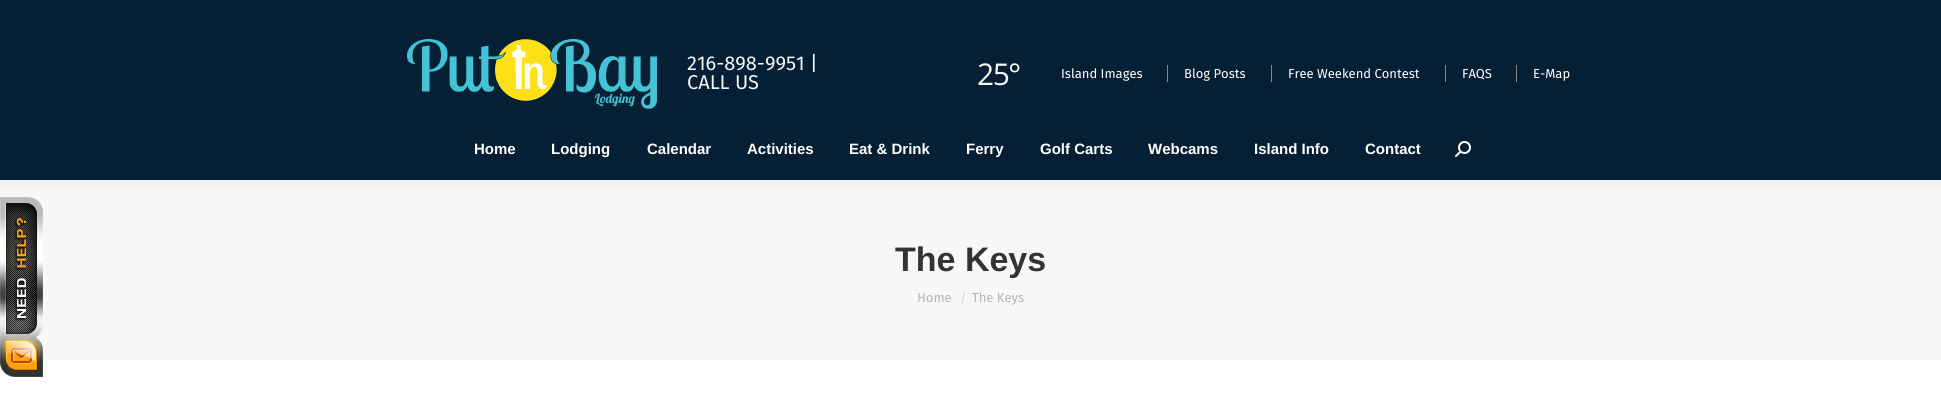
#include <cairo/cairo.h>
#include <math.h>
#include <stddef.h>


static void draw_spaced(cairo_t *cr, double x, double y, const char *s, double letter, double word) {
  cairo_move_to(cr, x, y);
  while (*s) {
    char ch[5] = {0};
    int n = 0;
    do ch[n++] = *s++; while ((*s & 0xC0) == 0x80);
    cairo_show_text(cr, ch);
    cairo_rel_move_to(cr, letter + word * (*ch == ' '), 0);
  }
}

static void rounded_rect(cairo_t *cr, double x, double y, double w, double h, double r) {
  cairo_new_sub_path(cr);
  cairo_arc(cr, x + w - r, y + h - r, r, 0, M_PI / 2);
  cairo_arc(cr, x + r, y + h - r, r, M_PI / 2, M_PI);
  cairo_arc(cr, x + r, y + r, r, M_PI, 1.5 * M_PI);
  cairo_arc(cr, x + w - r, y + r, r, 1.5 * M_PI, 2 * M_PI);
  cairo_close_path(cr);
}

static void draw_shadow(cairo_t *cr, double x, double y, double w, double h, double r, double blur, double alpha) {
  cairo_push_group_with_content(cr, CAIRO_CONTENT_ALPHA);
  cairo_set_operator(cr, CAIRO_OPERATOR_SOURCE);
  for (int i = 15; i >= -15 && fmin(w, h) + blur * i / 3 > 0; i -= 2) {
    double e = blur * i / 6;
    cairo_set_source_rgba(cr, 0, 0, 0, alpha * erfc((i - 1) / 8.5) / 2);
    rounded_rect(cr, x - e, y - e, w + 2 * e, h + 2 * e, fmax(0, fmin(r + e + blur * .6, fmin(w, h) / 2 + e)));
    cairo_fill(cr);
  }
  cairo_pattern_t *soft = cairo_pop_group(cr);
  cairo_mask(cr, soft);
  cairo_pattern_destroy(soft);
}

static void draw_image(cairo_t *cr, const char *path, double x, double y, double w, double h) {
  cairo_surface_t *image = cairo_image_surface_create_from_png(path);
  cairo_save(cr);
  cairo_set_source_surface(cr, image, x, y);
  cairo_rectangle(cr, x, y, w, h);
  cairo_fill(cr);
  cairo_restore(cr);
  cairo_surface_destroy(image);
}

static void draw(cairo_t *cr) {
  cairo_set_source_rgb(cr, 1, 1, 1);
  cairo_paint(cr);
  cairo_set_source_rgb(cr, 247 / 255.0, 247 / 255.0, 247 / 255.0);
  cairo_rectangle(cr, 0, 180, 1941, 180);
  cairo_fill(cr);
  cairo_set_source_rgb(cr, 0, 0, 0);
  draw_shadow(cr, -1, -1, 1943, 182, 0, 7.5, 0.07);
  draw_image(cr, "images/1.png", 0, 197, 43, 180);
  cairo_set_source_rgb(cr, 5 / 255.0, 31 / 255.0, 52 / 255.0);
  cairo_rectangle(cr, 0, 0, 1941, 180);
  cairo_fill(cr);
  draw_image(cr, "images/2.png", 407, 39, 250, 70);
  cairo_set_source_rgb(cr, 136 / 255.0, 136 / 255.0, 136 / 255.0);
  cairo_rectangle(cr, 1167, 65, 1, 17);
  cairo_fill(cr);
  cairo_rectangle(cr, 1271, 65, 1, 17);
  cairo_fill(cr);
  cairo_rectangle(cr, 1445, 65, 1, 17);
  cairo_fill(cr);
  cairo_rectangle(cr, 1516, 65, 1, 17);
  cairo_fill(cr);
  draw_image(cr, "images/3.png", 1455, 141, 16, 16);
  cairo_select_font_face(cr, "Fira Sans", CAIRO_FONT_SLANT_NORMAL, CAIRO_FONT_WEIGHT_NORMAL);
  cairo_set_font_size(cr, 20);
  cairo_set_source_rgb(cr, 246 / 255.0, 246 / 255.0, 246 / 255.0);
  cairo_move_to(cr, 687, 70);
  cairo_show_text(cr, "216-898-9951 |");
  cairo_move_to(cr, 687, 89);
  cairo_show_text(cr, "CALL US");
  cairo_select_font_face(cr, "Open Sans", CAIRO_FONT_SLANT_NORMAL, CAIRO_FONT_WEIGHT_NORMAL);
  cairo_set_font_size(cr, 30);
  draw_spaced(cr, 977, 85, "25°", -1.5, 0);
  cairo_select_font_face(cr, "Fira Sans", CAIRO_FONT_SLANT_NORMAL, CAIRO_FONT_WEIGHT_NORMAL);
  cairo_set_font_size(cr, 13);
  cairo_set_source_rgb(cr, 1, 1, 1);
  cairo_move_to(cr, 1061, 78);
  cairo_show_text(cr, "Island Images");
  cairo_move_to(cr, 1184, 78);
  cairo_show_text(cr, "Blog Posts");
  cairo_move_to(cr, 1288, 78);
  cairo_show_text(cr, "Free Weekend Contest");
  cairo_move_to(cr, 1462, 78);
  cairo_show_text(cr, "FAQS");
  cairo_move_to(cr, 1533, 78);
  cairo_show_text(cr, "E-Map");
  cairo_select_font_face(cr, "Liberation Sans", CAIRO_FONT_SLANT_NORMAL, CAIRO_FONT_WEIGHT_BOLD);
  cairo_set_font_size(cr, 15);
  cairo_move_to(cr, 474, 154);
  cairo_show_text(cr, "Home");
  cairo_move_to(cr, 551, 154);
  cairo_show_text(cr, "Lodging");
  cairo_move_to(cr, 647, 154);
  cairo_show_text(cr, "Calendar");
  cairo_move_to(cr, 747, 154);
  cairo_show_text(cr, "Activities");
  cairo_move_to(cr, 849, 154);
  cairo_show_text(cr, "Eat & Drink");
  cairo_move_to(cr, 966, 154);
  cairo_show_text(cr, "Ferry");
  cairo_move_to(cr, 1040, 154);
  cairo_show_text(cr, "Golf Carts");
  cairo_move_to(cr, 1148, 154);
  cairo_show_text(cr, "Webcams");
  cairo_move_to(cr, 1254, 154);
  cairo_show_text(cr, "Island Info");
  cairo_move_to(cr, 1365, 154);
  cairo_show_text(cr, "Contact");
  cairo_set_font_size(cr, 34);
  cairo_set_source_rgb(cr, 51 / 255.0, 51 / 255.0, 51 / 255.0);
  cairo_move_to(cr, 895, 271);
  cairo_show_text(cr, "The Keys");
  cairo_select_font_face(cr, "Fira Sans", CAIRO_FONT_SLANT_NORMAL, CAIRO_FONT_WEIGHT_NORMAL);
  cairo_set_font_size(cr, 13);
  cairo_set_source_rgb(cr, 180 / 255.0, 181 / 255.0, 187 / 255.0);
  cairo_move_to(cr, 917, 302);
  cairo_show_text(cr, "Home");
  cairo_set_source_rgb(cr, 214 / 255.0, 214 / 255.0, 217 / 255.0);
  cairo_move_to(cr, 960, 302);
  cairo_show_text(cr, "/");
  cairo_set_source_rgb(cr, 180 / 255.0, 181 / 255.0, 187 / 255.0);
  cairo_move_to(cr, 972, 302);
  cairo_show_text(cr, "The Keys");
}

int main(void) {
  cairo_surface_t *surface = cairo_image_surface_create(CAIRO_FORMAT_RGB24, 1941, 397);
  cairo_t *cr = cairo_create(surface);
  cairo_font_options_t *options = cairo_font_options_create();
  cairo_font_options_set_hint_metrics(options, CAIRO_HINT_METRICS_OFF);
  cairo_font_options_set_hint_style(options, CAIRO_HINT_STYLE_NONE);
  cairo_set_font_options(cr, options);
  cairo_set_miter_limit(cr, 4);
  draw(cr);
  cairo_surface_write_to_png(surface, "out.png");
  cairo_font_options_destroy(options);
  cairo_destroy(cr);
  cairo_surface_destroy(surface);
  return 0;
}
